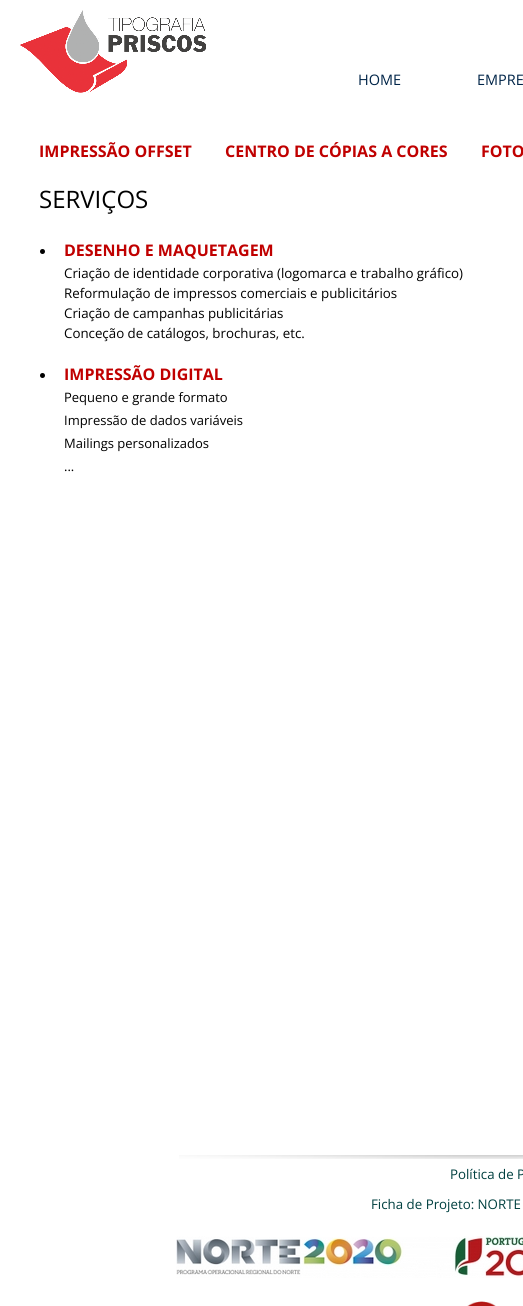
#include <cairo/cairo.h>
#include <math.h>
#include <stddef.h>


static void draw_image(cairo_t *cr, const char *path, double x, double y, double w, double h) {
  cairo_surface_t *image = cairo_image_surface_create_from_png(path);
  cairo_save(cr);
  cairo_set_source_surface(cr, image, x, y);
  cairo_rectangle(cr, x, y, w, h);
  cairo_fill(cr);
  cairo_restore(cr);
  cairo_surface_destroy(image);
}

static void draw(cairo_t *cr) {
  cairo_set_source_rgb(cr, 1, 1, 1);
  cairo_paint(cr);
  draw_image(cr, "images/1.png", 20, 10, 186, 83);
  cairo_set_source_rgb(cr, 0, 0, 0);
  cairo_arc(cr, 42.5, 251.5, 2.5, 0, 2 * M_PI);
  cairo_fill(cr);
  cairo_arc(cr, 42.5, 375.5, 2.5, 0, 2 * M_PI);
  cairo_fill(cr);
  draw_image(cr, "images/2.png", 179, 1155, 344, 4);
  draw_image(cr, "images/3.png", 176, 1236, 347, 42);
  draw_image(cr, "images/4.png", 467, 1301, 29, 5);
  cairo_select_font_face(cr, "Open Sans", CAIRO_FONT_SLANT_NORMAL, CAIRO_FONT_WEIGHT_NORMAL);
  cairo_set_font_size(cr, 14.5);
  cairo_set_source_rgb(cr, 0, 36 / 255.0, 72 / 255.0);
  cairo_move_to(cr, 358, 85);
  cairo_show_text(cr, "HOME");
  cairo_move_to(cr, 477, 85);
  cairo_show_text(cr, "EMPRE");
  cairo_select_font_face(cr, "Open Sans", CAIRO_FONT_SLANT_NORMAL, CAIRO_FONT_WEIGHT_BOLD);
  cairo_set_font_size(cr, 16);
  cairo_set_source_rgb(cr, 192 / 255.0, 0, 0);
  cairo_move_to(cr, 39, 157);
  cairo_show_text(cr, "IMPRESSÃO OFFSET");
  cairo_move_to(cr, 225, 157);
  cairo_show_text(cr, "CENTRO DE CÓPIAS A CORES");
  cairo_move_to(cr, 481, 157);
  cairo_show_text(cr, "FOTO");
  cairo_select_font_face(cr, "Open Sans", CAIRO_FONT_SLANT_NORMAL, CAIRO_FONT_WEIGHT_NORMAL);
  cairo_set_font_size(cr, 24);
  cairo_set_source_rgb(cr, 0, 0, 0);
  cairo_move_to(cr, 39, 208);
  cairo_show_text(cr, "SERVIÇOS");
  cairo_select_font_face(cr, "Open Sans", CAIRO_FONT_SLANT_NORMAL, CAIRO_FONT_WEIGHT_BOLD);
  cairo_set_font_size(cr, 16);
  cairo_set_source_rgb(cr, 192 / 255.0, 0, 0);
  cairo_move_to(cr, 64, 256);
  cairo_show_text(cr, "DESENHO E MAQUETAGEM");
  cairo_select_font_face(cr, "Open Sans", CAIRO_FONT_SLANT_NORMAL, CAIRO_FONT_WEIGHT_NORMAL);
  cairo_set_font_size(cr, 13.3);
  cairo_set_source_rgb(cr, 0, 0, 0);
  cairo_move_to(cr, 64, 278);
  cairo_show_text(cr, "Criação de identidade corporativa (logomarca e trabalho gráfico)");
  cairo_move_to(cr, 64, 298);
  cairo_show_text(cr, "Reformulação de impressos comerciais e publicitários");
  cairo_move_to(cr, 64, 318);
  cairo_show_text(cr, "Criação de campanhas publicitárias");
  cairo_move_to(cr, 64, 338);
  cairo_show_text(cr, "Conceção de catálogos, brochuras, etc.");
  cairo_select_font_face(cr, "Open Sans", CAIRO_FONT_SLANT_NORMAL, CAIRO_FONT_WEIGHT_BOLD);
  cairo_set_font_size(cr, 16);
  cairo_set_source_rgb(cr, 192 / 255.0, 0, 0);
  cairo_move_to(cr, 64, 380);
  cairo_show_text(cr, "IMPRESSÃO DIGITAL");
  cairo_select_font_face(cr, "Open Sans", CAIRO_FONT_SLANT_NORMAL, CAIRO_FONT_WEIGHT_NORMAL);
  cairo_set_font_size(cr, 13);
  cairo_set_source_rgb(cr, 0, 0, 0);
  cairo_move_to(cr, 64, 402);
  cairo_show_text(cr, "Pequeno e grande formato");
  cairo_move_to(cr, 64, 425);
  cairo_show_text(cr, "Impressão de dados variáveis");
  cairo_move_to(cr, 64, 448);
  cairo_show_text(cr, "Mailings personalizados");
  cairo_move_to(cr, 64, 471);
  cairo_show_text(cr, "...");
  cairo_set_font_size(cr, 13.3);
  cairo_set_source_rgb(cr, 0, 64 / 255.0, 64 / 255.0);
  cairo_move_to(cr, 450, 1179);
  cairo_show_text(cr, "Política de P");
  cairo_move_to(cr, 371, 1209);
  cairo_show_text(cr, "Ficha de Projeto: NORTE");
}

int main(void) {
  cairo_surface_t *surface = cairo_image_surface_create(CAIRO_FORMAT_RGB24, 523, 1306);
  cairo_t *cr = cairo_create(surface);
  cairo_font_options_t *options = cairo_font_options_create();
  cairo_font_options_set_hint_metrics(options, CAIRO_HINT_METRICS_OFF);
  cairo_font_options_set_hint_style(options, CAIRO_HINT_STYLE_NONE);
  cairo_set_font_options(cr, options);
  cairo_set_miter_limit(cr, 4);
  draw(cr);
  cairo_surface_write_to_png(surface, "out.png");
  cairo_font_options_destroy(options);
  cairo_destroy(cr);
  cairo_surface_destroy(surface);
  return 0;
}
